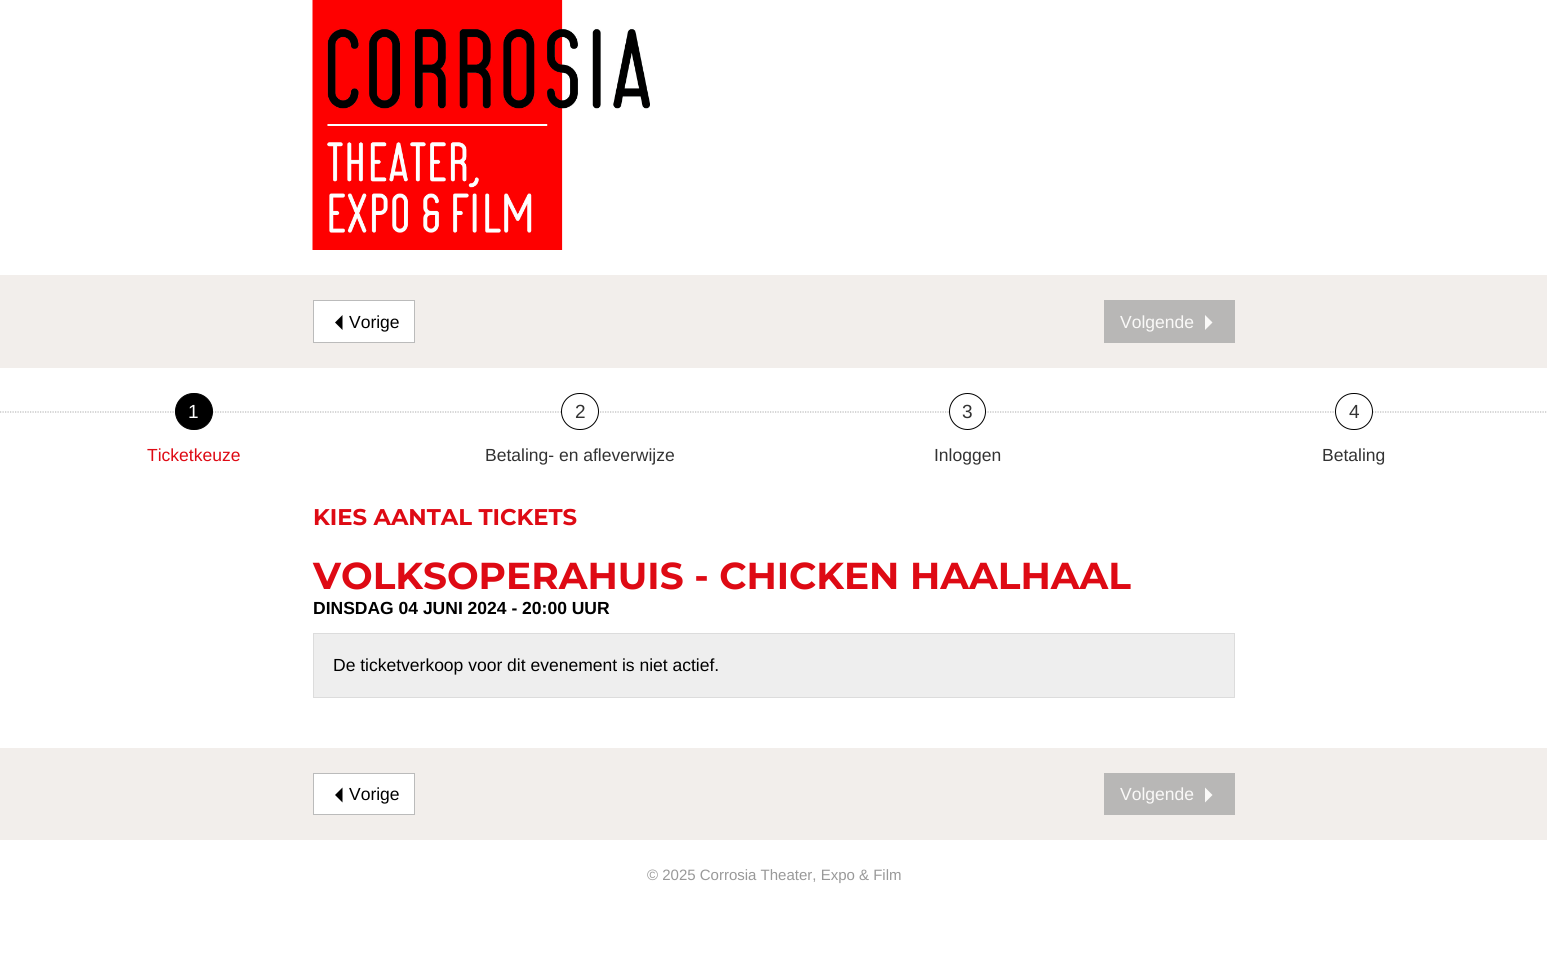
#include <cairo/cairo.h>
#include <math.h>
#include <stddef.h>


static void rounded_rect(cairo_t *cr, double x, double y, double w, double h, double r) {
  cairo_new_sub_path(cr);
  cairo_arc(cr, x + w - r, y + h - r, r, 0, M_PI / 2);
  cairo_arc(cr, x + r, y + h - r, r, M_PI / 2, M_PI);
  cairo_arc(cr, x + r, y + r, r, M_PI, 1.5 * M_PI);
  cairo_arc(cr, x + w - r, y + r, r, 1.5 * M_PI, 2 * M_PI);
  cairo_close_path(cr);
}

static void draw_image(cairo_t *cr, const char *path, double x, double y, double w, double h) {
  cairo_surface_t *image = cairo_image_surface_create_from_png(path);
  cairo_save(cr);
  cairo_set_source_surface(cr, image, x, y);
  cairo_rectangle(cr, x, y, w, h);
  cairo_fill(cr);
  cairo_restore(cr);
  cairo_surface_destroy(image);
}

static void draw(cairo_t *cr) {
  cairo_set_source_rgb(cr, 1, 1, 1);
  cairo_paint(cr);
  draw_image(cr, "images/1.png", 312, 0, 338, 250);
  cairo_set_source_rgb(cr, 242 / 255.0, 238 / 255.0, 235 / 255.0);
  cairo_rectangle(cr, 0, 275, 1547, 93);
  cairo_fill(cr);
  cairo_set_source_rgb(cr, 1, 1, 1);
  cairo_rectangle(cr, 313.5, 300.5, 101, 42);
  cairo_fill_preserve(cr);
  cairo_set_source_rgb(cr, 187 / 255.0, 187 / 255.0, 187 / 255.0);
  cairo_set_line_width(cr, 1);
  cairo_stroke(cr);
  cairo_set_source_rgb(cr, 0, 0, 0);
  cairo_new_path(cr);
  cairo_move_to(cr, 342.5, 315);
  cairo_line_to(cr, 342.5, 330);
  cairo_line_to(cr, 335, 322.5);
  cairo_close_path(cr);
  cairo_fill(cr);
  cairo_set_source_rgb(cr, 184 / 255.0, 183 / 255.0, 182 / 255.0);
  cairo_rectangle(cr, 1104, 300, 131, 43);
  cairo_fill(cr);
  cairo_set_source_rgb(cr, 250 / 255.0, 249 / 255.0, 248 / 255.0);
  cairo_new_path(cr);
  cairo_move_to(cr, 1205, 330);
  cairo_line_to(cr, 1205, 315);
  cairo_line_to(cr, 1212.5, 322.5);
  cairo_close_path(cr);
  cairo_fill(cr);
  cairo_new_path(cr);
  cairo_move_to(cr, 0, 412);
  cairo_line_to(cr, 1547.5, 412);
  cairo_set_source_rgb(cr, 187 / 255.0, 187 / 255.0, 187 / 255.0);
  cairo_set_line_width(cr, 1.2);
  cairo_set_dash(cr, (double[]){1.25, 1.25}, 2, 0);
  cairo_stroke(cr);
  cairo_set_source_rgb(cr, 0, 0, 0);
  rounded_rect(cr, 175.5, 393.5, 37, 36, 18);
  cairo_fill_preserve(cr);
  cairo_set_line_width(cr, 1);
  cairo_set_dash(cr, NULL, 0, 0);
  cairo_stroke(cr);
  cairo_set_source_rgb(cr, 1, 1, 1);
  rounded_rect(cr, 561.5, 393.5, 37, 36, 18);
  cairo_fill_preserve(cr);
  cairo_set_source_rgb(cr, 0, 0, 0);
  cairo_stroke(cr);
  cairo_set_source_rgb(cr, 1, 1, 1);
  cairo_arc(cr, 967.5, 411.5, 18, 0, 2 * M_PI);
  cairo_fill_preserve(cr);
  cairo_set_source_rgb(cr, 0, 0, 0);
  cairo_stroke(cr);
  cairo_set_source_rgb(cr, 1, 1, 1);
  rounded_rect(cr, 1335.5, 393.5, 37, 36, 18);
  cairo_fill_preserve(cr);
  cairo_set_source_rgb(cr, 0, 0, 0);
  cairo_stroke(cr);
  cairo_set_source_rgb(cr, 238 / 255.0, 238 / 255.0, 238 / 255.0);
  cairo_rectangle(cr, 313.5, 633.5, 921, 64);
  cairo_fill_preserve(cr);
  cairo_set_source_rgb(cr, 220 / 255.0, 220 / 255.0, 220 / 255.0);
  cairo_stroke(cr);
  cairo_set_source_rgb(cr, 242 / 255.0, 238 / 255.0, 235 / 255.0);
  cairo_rectangle(cr, 0, 748, 1547, 92);
  cairo_fill(cr);
  cairo_set_source_rgb(cr, 1, 1, 1);
  cairo_rectangle(cr, 313.5, 773.5, 101, 41);
  cairo_fill_preserve(cr);
  cairo_set_source_rgb(cr, 187 / 255.0, 187 / 255.0, 187 / 255.0);
  cairo_stroke(cr);
  cairo_set_source_rgb(cr, 0, 0, 0);
  cairo_new_path(cr);
  cairo_move_to(cr, 342.5, 787.5);
  cairo_line_to(cr, 342.5, 802.5);
  cairo_line_to(cr, 335, 795);
  cairo_close_path(cr);
  cairo_fill(cr);
  cairo_set_source_rgb(cr, 184 / 255.0, 183 / 255.0, 182 / 255.0);
  cairo_rectangle(cr, 1104, 773, 131, 42);
  cairo_fill(cr);
  cairo_set_source_rgb(cr, 250 / 255.0, 249 / 255.0, 248 / 255.0);
  cairo_new_path(cr);
  cairo_move_to(cr, 1205, 802.5);
  cairo_line_to(cr, 1205, 787.5);
  cairo_line_to(cr, 1212.5, 795);
  cairo_close_path(cr);
  cairo_fill(cr);
  cairo_select_font_face(cr, "Arimo", CAIRO_FONT_SLANT_NORMAL, CAIRO_FONT_WEIGHT_NORMAL);
  cairo_set_font_size(cr, 17.5);
  cairo_set_source_rgb(cr, 0, 0, 0);
  cairo_move_to(cr, 349, 328);
  cairo_show_text(cr, "Vorige");
  cairo_set_source_rgb(cr, 250 / 255.0, 249 / 255.0, 248 / 255.0);
  cairo_move_to(cr, 1120, 328);
  cairo_show_text(cr, "Volgende");
  cairo_set_font_size(cr, 19);
  cairo_set_source_rgb(cr, 1, 1, 1);
  cairo_move_to(cr, 188, 418);
  cairo_show_text(cr, "1");
  cairo_set_font_size(cr, 17.5);
  cairo_set_source_rgb(cr, 222 / 255.0, 10 / 255.0, 20 / 255.0);
  cairo_move_to(cr, 147, 461);
  cairo_show_text(cr, "Ticketkeuze");
  cairo_set_font_size(cr, 19);
  cairo_set_source_rgb(cr, 51 / 255.0, 51 / 255.0, 51 / 255.0);
  cairo_move_to(cr, 575, 418);
  cairo_show_text(cr, "2");
  cairo_set_font_size(cr, 17.5);
  cairo_move_to(cr, 485, 461);
  cairo_show_text(cr, "Betaling- en afleverwijze");
  cairo_set_font_size(cr, 19);
  cairo_move_to(cr, 962, 418);
  cairo_show_text(cr, "3");
  cairo_set_font_size(cr, 17.5);
  cairo_move_to(cr, 934, 461);
  cairo_show_text(cr, "Inloggen");
  cairo_set_font_size(cr, 19);
  cairo_move_to(cr, 1349, 418);
  cairo_show_text(cr, "4");
  cairo_set_font_size(cr, 17.5);
  cairo_move_to(cr, 1322, 461);
  cairo_show_text(cr, "Betaling");
  cairo_select_font_face(cr, "Montserrat", CAIRO_FONT_SLANT_NORMAL, CAIRO_FONT_WEIGHT_BOLD);
  cairo_set_font_size(cr, 22.75);
  cairo_set_source_rgb(cr, 222 / 255.0, 10 / 255.0, 20 / 255.0);
  cairo_move_to(cr, 313, 525);
  cairo_show_text(cr, "KIES AANTAL TICKETS");
  cairo_set_font_size(cr, 37.5);
  cairo_move_to(cr, 313, 589);
  cairo_show_text(cr, "VOLKSOPERAHUIS - CHICKEN HAALHAAL");
  cairo_select_font_face(cr, "Arimo", CAIRO_FONT_SLANT_NORMAL, CAIRO_FONT_WEIGHT_BOLD);
  cairo_set_font_size(cr, 17.5);
  cairo_set_source_rgb(cr, 0, 0, 0);
  cairo_move_to(cr, 313, 614);
  cairo_show_text(cr, "DINSDAG 04 JUNI 2024 - 20:00 UUR");
  cairo_select_font_face(cr, "Arimo", CAIRO_FONT_SLANT_NORMAL, CAIRO_FONT_WEIGHT_NORMAL);
  cairo_move_to(cr, 333, 671);
  cairo_show_text(cr, "De ticketverkoop voor dit evenement is niet actief.");
  cairo_move_to(cr, 349, 800);
  cairo_show_text(cr, "Vorige");
  cairo_set_source_rgb(cr, 250 / 255.0, 249 / 255.0, 248 / 255.0);
  cairo_move_to(cr, 1120, 800);
  cairo_show_text(cr, "Volgende");
  cairo_set_font_size(cr, 15);
  cairo_set_source_rgb(cr, 153 / 255.0, 153 / 255.0, 153 / 255.0);
  cairo_move_to(cr, 647, 880);
  cairo_show_text(cr, "© 2025 Corrosia Theater, Expo & Film");
}

int main(void) {
  cairo_surface_t *surface = cairo_image_surface_create(CAIRO_FORMAT_RGB24, 1547, 971);
  cairo_t *cr = cairo_create(surface);
  cairo_font_options_t *options = cairo_font_options_create();
  cairo_font_options_set_hint_metrics(options, CAIRO_HINT_METRICS_OFF);
  cairo_font_options_set_hint_style(options, CAIRO_HINT_STYLE_NONE);
  cairo_set_font_options(cr, options);
  cairo_set_miter_limit(cr, 4);
  draw(cr);
  cairo_surface_write_to_png(surface, "out.png");
  cairo_font_options_destroy(options);
  cairo_destroy(cr);
  cairo_surface_destroy(surface);
  return 0;
}
